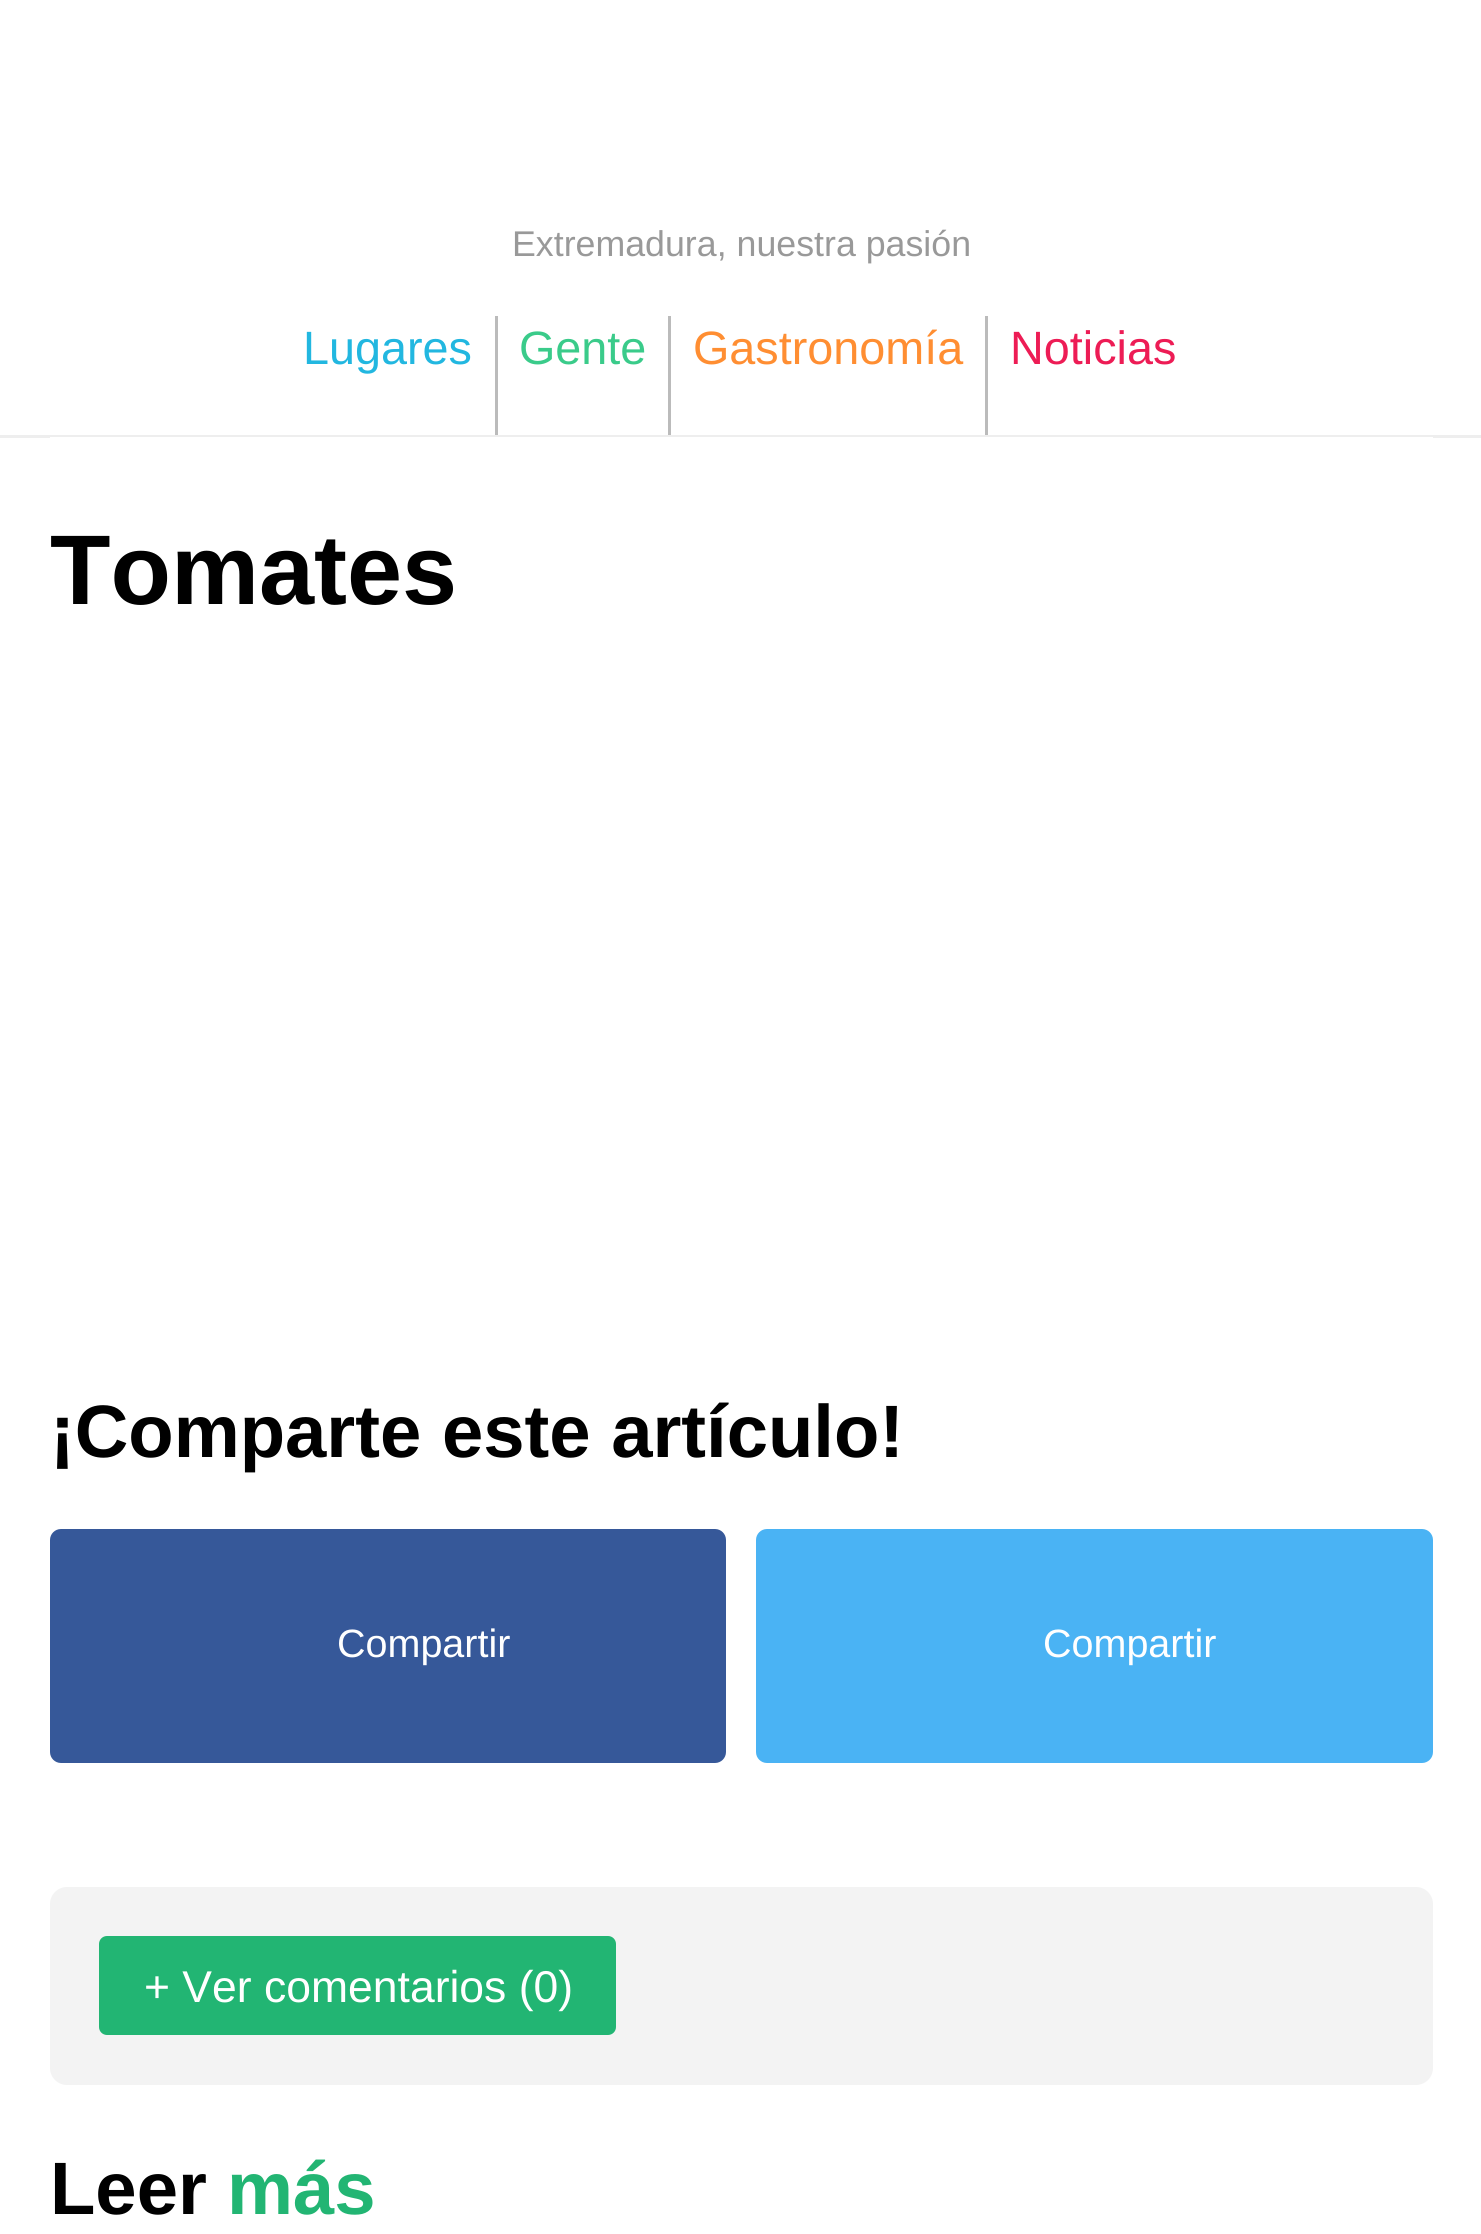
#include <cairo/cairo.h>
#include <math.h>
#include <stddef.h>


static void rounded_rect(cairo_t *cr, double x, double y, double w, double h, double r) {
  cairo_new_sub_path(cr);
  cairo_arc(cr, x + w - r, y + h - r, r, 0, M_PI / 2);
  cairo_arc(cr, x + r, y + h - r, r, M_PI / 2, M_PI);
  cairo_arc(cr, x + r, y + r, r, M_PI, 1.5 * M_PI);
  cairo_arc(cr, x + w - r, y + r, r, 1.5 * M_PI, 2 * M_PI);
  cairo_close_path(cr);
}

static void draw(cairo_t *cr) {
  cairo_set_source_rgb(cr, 1, 1, 1);
  cairo_paint(cr);
  cairo_set_source_rgb(cr, 238 / 255.0, 238 / 255.0, 238 / 255.0);
  cairo_rectangle(cr, 0, 435, 1481, 3);
  cairo_fill(cr);
  cairo_set_source_rgb(cr, 187 / 255.0, 187 / 255.0, 187 / 255.0);
  cairo_rectangle(cr, 495, 316, 3, 119);
  cairo_fill(cr);
  cairo_rectangle(cr, 668, 316, 3, 119);
  cairo_fill(cr);
  cairo_rectangle(cr, 985, 316, 3, 119);
  cairo_fill(cr);
  cairo_set_source_rgb(cr, 1, 1, 1);
  cairo_rectangle(cr, 50, 437, 1383, 1);
  cairo_fill(cr);
  cairo_set_source_rgb(cr, 54 / 255.0, 88 / 255.0, 153 / 255.0);
  rounded_rect(cr, 50, 1529, 676, 234, 11);
  cairo_fill(cr);
  cairo_set_source_rgb(cr, 74 / 255.0, 179 / 255.0, 244 / 255.0);
  rounded_rect(cr, 756, 1529, 677, 234, 11);
  cairo_fill(cr);
  cairo_set_source_rgb(cr, 243 / 255.0, 243 / 255.0, 243 / 255.0);
  rounded_rect(cr, 50, 1887, 1383, 198, 17);
  cairo_fill(cr);
  cairo_set_source_rgb(cr, 34 / 255.0, 181 / 255.0, 115 / 255.0);
  rounded_rect(cr, 99, 1936, 517, 99, 8);
  cairo_fill(cr);
  cairo_select_font_face(cr, "Liberation Sans", CAIRO_FONT_SLANT_NORMAL, CAIRO_FONT_WEIGHT_NORMAL);
  cairo_set_font_size(cr, 35.75);
  cairo_set_source_rgb(cr, 153 / 255.0, 153 / 255.0, 153 / 255.0);
  cairo_move_to(cr, 512, 256);
  cairo_show_text(cr, "Extremadura, nuestra pasión");
  cairo_set_font_size(cr, 46.75);
  cairo_set_source_rgb(cr, 34 / 255.0, 183 / 255.0, 224 / 255.0);
  cairo_move_to(cr, 303, 364);
  cairo_show_text(cr, "Lugares");
  cairo_set_source_rgb(cr, 58 / 255.0, 203 / 255.0, 138 / 255.0);
  cairo_move_to(cr, 519, 364);
  cairo_show_text(cr, "Gente");
  cairo_set_source_rgb(cr, 1, 142 / 255.0, 50 / 255.0);
  cairo_move_to(cr, 693, 364);
  cairo_show_text(cr, "Gastronomía");
  cairo_set_source_rgb(cr, 237 / 255.0, 28 / 255.0, 85 / 255.0);
  cairo_move_to(cr, 1010, 364);
  cairo_show_text(cr, "Noticias");
  cairo_select_font_face(cr, "Liberation Sans", CAIRO_FONT_SLANT_NORMAL, CAIRO_FONT_WEIGHT_BOLD);
  cairo_set_font_size(cr, 99);
  cairo_set_source_rgb(cr, 0, 0, 0);
  cairo_move_to(cr, 50, 604);
  cairo_show_text(cr, "Tomates");
  cairo_set_font_size(cr, 74.25);
  cairo_move_to(cr, 50, 1457);
  cairo_show_text(cr, "¡Comparte este artículo!");
  cairo_select_font_face(cr, "Liberation Sans", CAIRO_FONT_SLANT_NORMAL, CAIRO_FONT_WEIGHT_NORMAL);
  cairo_set_font_size(cr, 39.5);
  cairo_set_source_rgb(cr, 1, 1, 1);
  cairo_move_to(cr, 337, 1657);
  cairo_show_text(cr, "Compartir");
  cairo_move_to(cr, 1043, 1657);
  cairo_show_text(cr, "Compartir");
  cairo_set_font_size(cr, 44.5);
  cairo_move_to(cr, 144, 2002);
  cairo_show_text(cr, "+ Ver comentarios (0)");
  cairo_select_font_face(cr, "Liberation Sans", CAIRO_FONT_SLANT_NORMAL, CAIRO_FONT_WEIGHT_BOLD);
  cairo_set_font_size(cr, 74.25);
  cairo_set_source_rgb(cr, 0, 0, 0);
  cairo_move_to(cr, 50, 2214);
  cairo_show_text(cr, "Leer");
  cairo_set_source_rgb(cr, 34 / 255.0, 181 / 255.0, 115 / 255.0);
  cairo_move_to(cr, 227, 2214);
  cairo_show_text(cr, "más");
}

int main(void) {
  cairo_surface_t *surface = cairo_image_surface_create(CAIRO_FORMAT_RGB24, 1481, 2234);
  cairo_t *cr = cairo_create(surface);
  cairo_font_options_t *options = cairo_font_options_create();
  cairo_font_options_set_hint_metrics(options, CAIRO_HINT_METRICS_OFF);
  cairo_font_options_set_hint_style(options, CAIRO_HINT_STYLE_NONE);
  cairo_set_font_options(cr, options);
  cairo_set_miter_limit(cr, 4);
  draw(cr);
  cairo_surface_write_to_png(surface, "out.png");
  cairo_font_options_destroy(options);
  cairo_destroy(cr);
  cairo_surface_destroy(surface);
  return 0;
}
